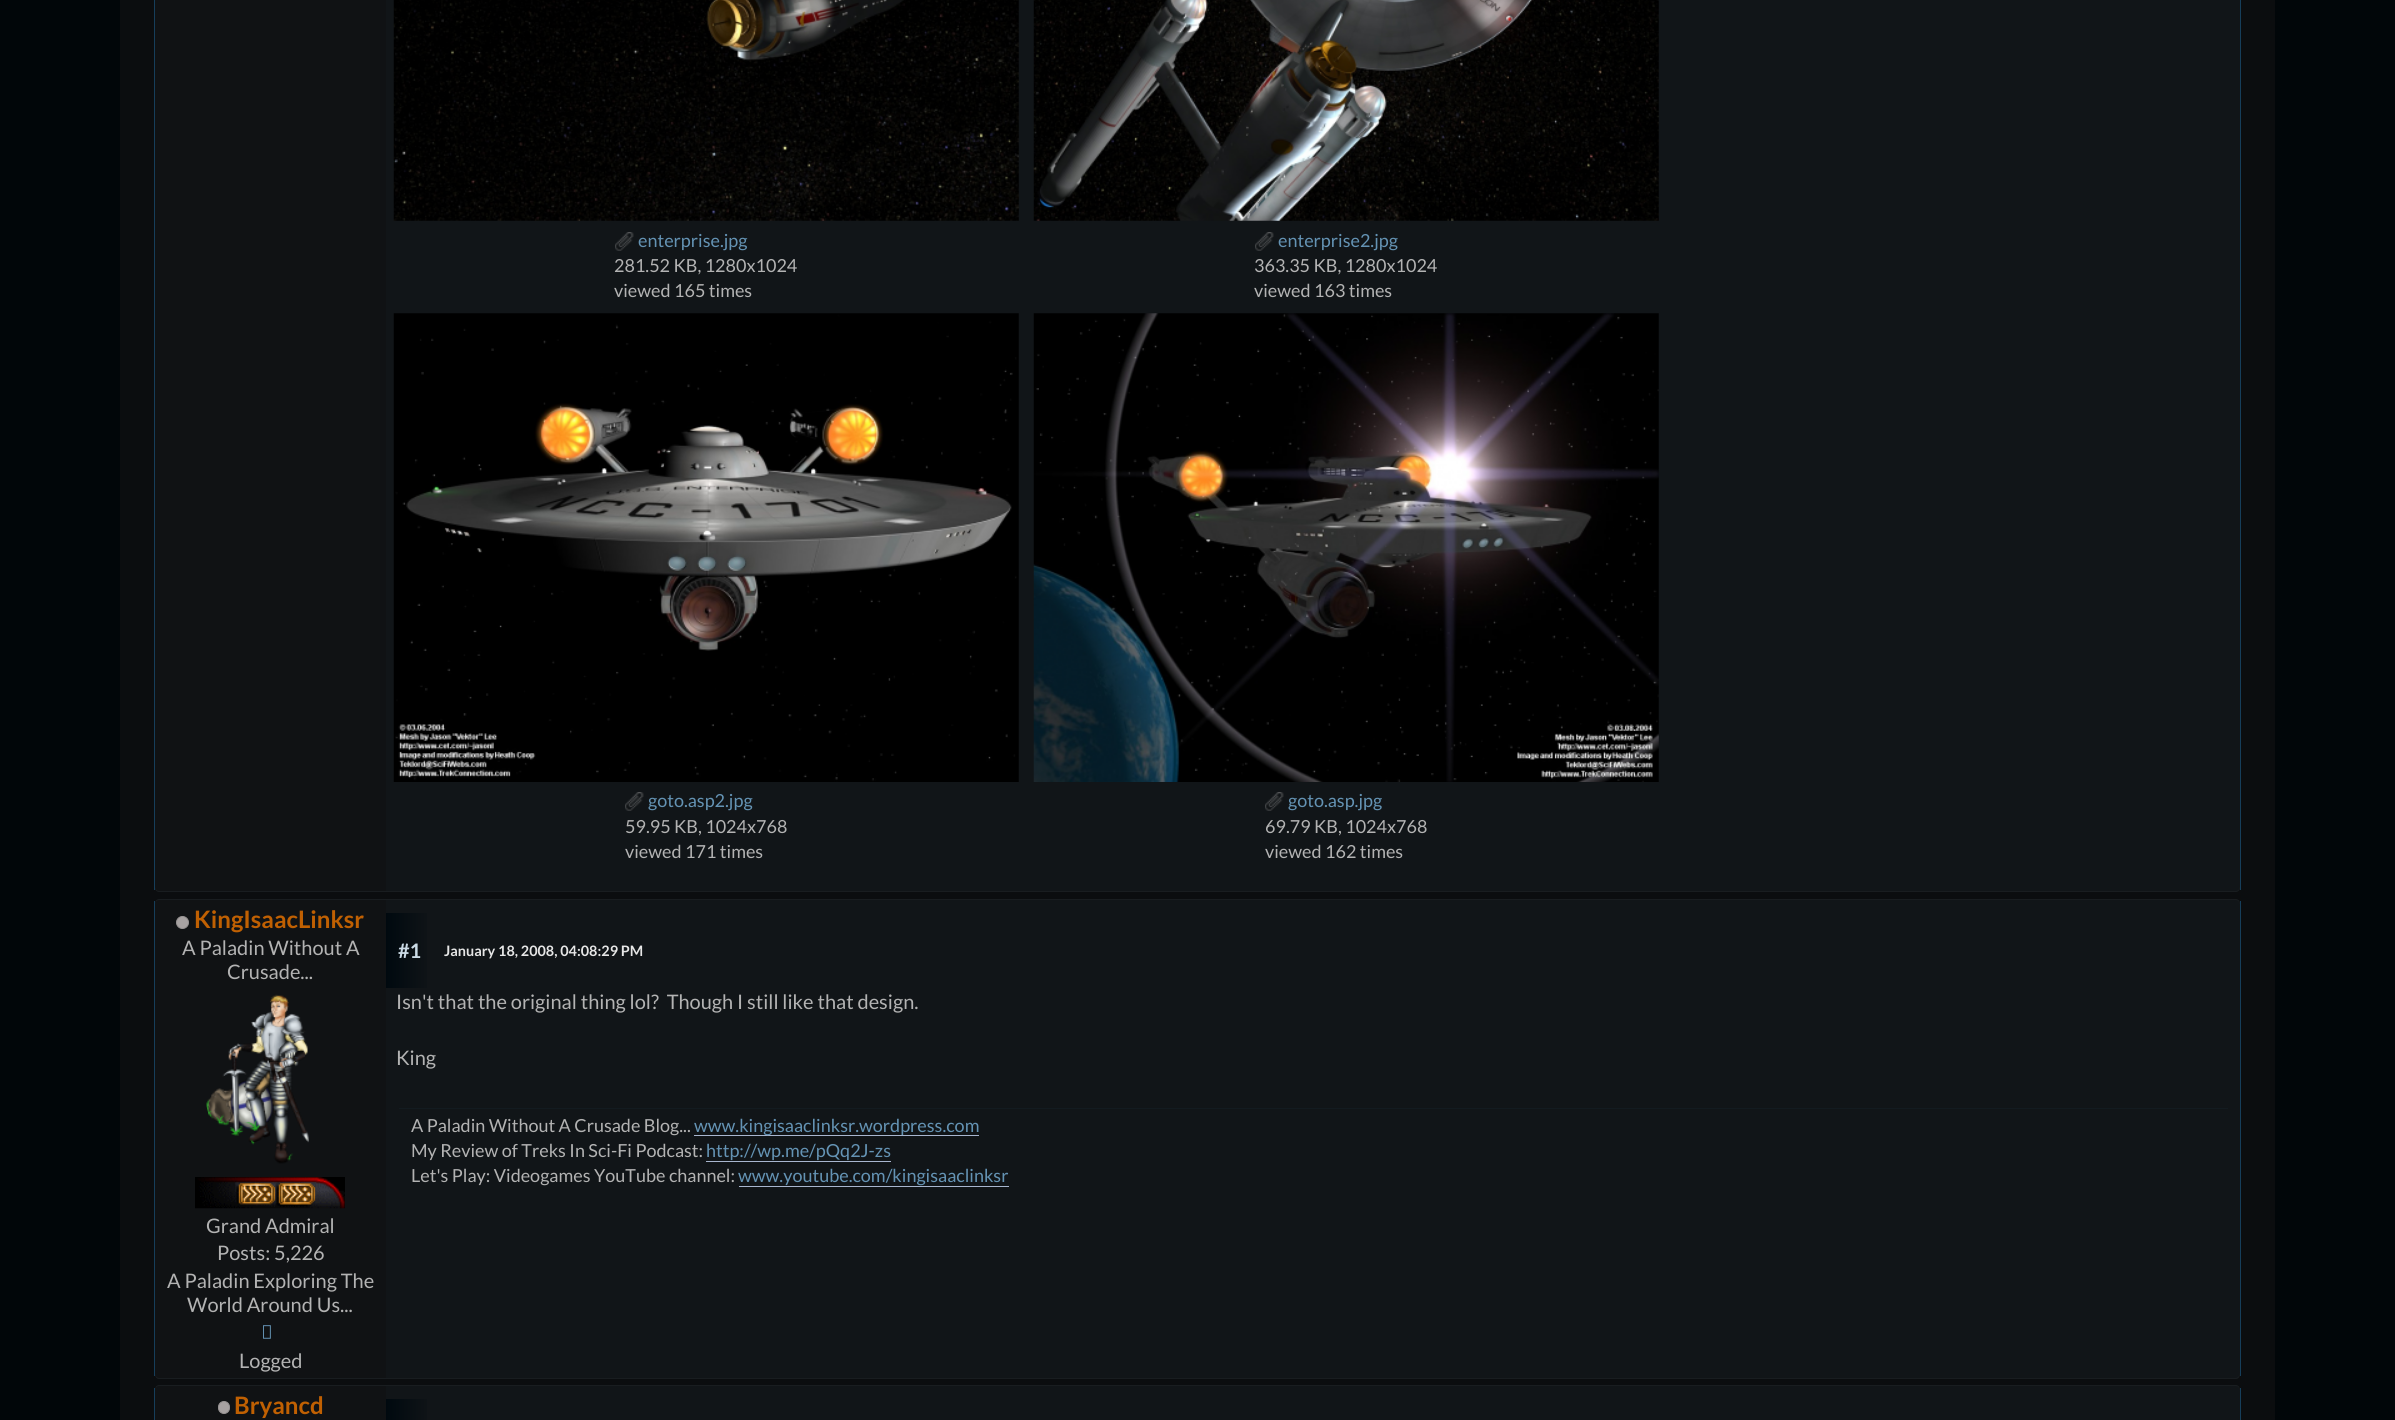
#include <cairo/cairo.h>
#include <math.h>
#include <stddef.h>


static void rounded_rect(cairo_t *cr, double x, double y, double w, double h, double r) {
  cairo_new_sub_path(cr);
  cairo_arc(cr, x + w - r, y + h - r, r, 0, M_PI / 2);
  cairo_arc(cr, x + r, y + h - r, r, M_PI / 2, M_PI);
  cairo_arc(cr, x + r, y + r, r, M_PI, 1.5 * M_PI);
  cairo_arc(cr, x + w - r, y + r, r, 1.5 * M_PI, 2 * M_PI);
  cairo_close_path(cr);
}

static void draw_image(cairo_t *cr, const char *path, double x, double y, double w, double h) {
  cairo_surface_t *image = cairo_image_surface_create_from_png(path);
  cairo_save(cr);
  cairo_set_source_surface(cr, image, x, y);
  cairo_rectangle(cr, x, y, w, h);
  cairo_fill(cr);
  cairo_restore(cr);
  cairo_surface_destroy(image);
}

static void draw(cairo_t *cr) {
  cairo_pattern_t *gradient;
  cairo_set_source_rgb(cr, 1 / 255.0, 6 / 255.0, 9 / 255.0);
  cairo_paint(cr);
  cairo_set_source_rgb(cr, 11 / 255.0, 13 / 255.0, 15 / 255.0);
  cairo_rectangle(cr, 120, 0, 2155, 1420);
  cairo_fill(cr);
  cairo_set_source_rgb(cr, 17 / 255.0, 21 / 255.0, 24 / 255.0);
  cairo_new_path(cr);
  cairo_move_to(cr, 159, -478);
  cairo_line_to(cr, 2236, -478);
  cairo_curve_to(cr, 2238, -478, 2240, -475, 2240, -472);
  cairo_line_to(cr, 2240, 888);
  cairo_curve_to(cr, 2240, 890, 2238, 892, 2236, 892);
  cairo_line_to(cr, 159, 892);
  cairo_curve_to(cr, 157, 892, 155, 890, 155, 888);
  cairo_line_to(cr, 155, -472);
  cairo_curve_to(cr, 155, -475, 157, -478, 159, -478);
  cairo_close_path(cr);
  cairo_fill(cr);
  cairo_set_source_rgba(cr, 105 / 255.0, 105 / 255.0, 105 / 255.0, 0.1);
  cairo_new_path(cr);
  cairo_move_to(cr, 155, 886);
  cairo_line_to(cr, 155, 888);
  cairo_curve_to(cr, 155, 890, 157, 892, 159, 892);
  cairo_line_to(cr, 2236, 892);
  cairo_curve_to(cr, 2238, 892, 2240, 890, 2240, 888);
  cairo_line_to(cr, 2240, 886);
  cairo_curve_to(cr, 2240, 889, 2238, 891, 2236, 891);
  cairo_line_to(cr, 159, 891);
  cairo_curve_to(cr, 157, 891, 155, 889, 155, 886);
  cairo_close_path(cr);
  cairo_fill(cr);
  cairo_set_source_rgb(cr, 22 / 255.0, 62 / 255.0, 90 / 255.0);
  cairo_rectangle(cr, 2240, 0, 1, 890);
  cairo_fill(cr);
  cairo_rectangle(cr, 154, 0, 1, 890);
  cairo_fill(cr);
  cairo_set_source_rgb(cr, 16 / 255.0, 18 / 255.0, 20 / 255.0);
  cairo_new_path(cr);
  cairo_move_to(cr, 160, -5);
  cairo_line_to(cr, 386, -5);
  cairo_line_to(cr, 386, 891);
  cairo_line_to(cr, 160, 891);
  cairo_curve_to(cr, 157, 891, 155, 889, 155, 886);
  cairo_line_to(cr, 155, 0);
  cairo_curve_to(cr, 155, -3, 157, -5, 160, -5);
  cairo_close_path(cr);
  cairo_fill(cr);
  draw_image(cr, "images/1.png", 393, 0, 626, 221);
  draw_image(cr, "images/2.png", 615, 232, 19, 19);
  draw_image(cr, "images/3.png", 1033, 0, 626, 221);
  draw_image(cr, "images/4.png", 1255, 232, 19, 19);
  draw_image(cr, "images/5.png", 393, 313, 626, 469);
  draw_image(cr, "images/2.png", 625, 792, 19, 19);
  draw_image(cr, "images/6.png", 1033, 313, 626, 469);
  draw_image(cr, "images/2.png", 1265, 792, 19, 19);
  cairo_set_source_rgb(cr, 17 / 255.0, 21 / 255.0, 24 / 255.0);
  cairo_new_path(cr);
  cairo_move_to(cr, 159, 899);
  cairo_line_to(cr, 2236, 899);
  cairo_curve_to(cr, 2238, 899, 2240, 901, 2240, 904);
  cairo_line_to(cr, 2240, 1374);
  cairo_curve_to(cr, 2240, 1377, 2238, 1379, 2236, 1379);
  cairo_line_to(cr, 159, 1379);
  cairo_curve_to(cr, 157, 1379, 155, 1377, 155, 1374);
  cairo_line_to(cr, 155, 904);
  cairo_curve_to(cr, 155, 901, 157, 899, 159, 899);
  cairo_close_path(cr);
  cairo_fill(cr);
  cairo_set_source_rgba(cr, 105 / 255.0, 105 / 255.0, 105 / 255.0, 0.1);
  cairo_new_path(cr);
  cairo_move_to(cr, 155, 1372);
  cairo_curve_to(cr, 155, 1374, 155, 1379, 159, 1379);
  cairo_line_to(cr, 2236, 1379);
  cairo_curve_to(cr, 2240, 1379, 2240, 1374, 2240, 1372);
  cairo_curve_to(cr, 2240, 1375, 2238, 1378, 2236, 1378);
  cairo_line_to(cr, 159, 1378);
  cairo_curve_to(cr, 157, 1378, 155, 1375, 155, 1372);
  cairo_close_path(cr);
  cairo_fill(cr);
  cairo_new_path(cr);
  cairo_move_to(cr, 159, 900);
  cairo_line_to(cr, 2236, 900);
  cairo_curve_to(cr, 2238, 900, 2240, 902, 2240, 905);
  cairo_line_to(cr, 2240, 904);
  cairo_curve_to(cr, 2240, 901, 2238, 899, 2236, 899);
  cairo_line_to(cr, 159, 899);
  cairo_curve_to(cr, 157, 899, 155, 901, 155, 904);
  cairo_line_to(cr, 155, 905);
  cairo_curve_to(cr, 155, 902, 157, 900, 159, 900);
  cairo_close_path(cr);
  cairo_fill(cr);
  cairo_set_source_rgb(cr, 22 / 255.0, 62 / 255.0, 90 / 255.0);
  cairo_rectangle(cr, 2240, 901, 1, 475);
  cairo_fill(cr);
  cairo_rectangle(cr, 154, 901, 1, 475);
  cairo_fill(cr);
  cairo_set_source_rgb(cr, 16 / 255.0, 18 / 255.0, 20 / 255.0);
  cairo_new_path(cr);
  cairo_move_to(cr, 160, 900);
  cairo_line_to(cr, 386, 900);
  cairo_line_to(cr, 386, 1378);
  cairo_line_to(cr, 160, 1378);
  cairo_curve_to(cr, 157, 1378, 155, 1376, 155, 1373);
  cairo_line_to(cr, 155, 905);
  cairo_curve_to(cr, 155, 902, 157, 900, 160, 900);
  cairo_close_path(cr);
  cairo_fill(cr);
  cairo_set_source_rgb(cr, 167 / 255.0, 162 / 255.0, 162 / 255.0);
  cairo_arc(cr, 182.5, 922.5, 6, 0, 2 * M_PI);
  cairo_fill_preserve(cr);
  cairo_set_source_rgb(cr, 150 / 255.0, 146 / 255.0, 146 / 255.0);
  cairo_set_line_width(cr, 1);
  cairo_stroke(cr);
  draw_image(cr, "images/7.png", 206, 994, 103, 170);
  draw_image(cr, "images/8.png", 195, 1177, 150, 32);
  draw_image(cr, "images/9.png", 263, 1325, 8, 14);
  gradient = cairo_pattern_create_linear(386, 950, 434, 950);
  cairo_pattern_add_color_stop_rgba(gradient, 0, 0, 9 / 255.0, 15 / 255.0, 1);
  cairo_pattern_add_color_stop_rgba(gradient, 1, 17 / 255.0, 21 / 255.0, 24 / 255.0, 1);
  cairo_set_source(cr, gradient);
  cairo_pattern_destroy(gradient);
  cairo_rectangle(cr, 386, 913, 41, 75);
  cairo_fill(cr);
  cairo_set_source_rgb(cr, 19 / 255.0, 27 / 255.0, 32 / 255.0);
  cairo_rectangle(cr, 399, 1108, 1829, 1);
  cairo_fill(cr);
  cairo_set_source_rgb(cr, 168 / 255.0, 182 / 255.0, 207 / 255.0);
  cairo_rectangle(cr, 694, 1135, 285, 1);
  cairo_fill(cr);
  cairo_rectangle(cr, 706, 1161, 185, 1);
  cairo_fill(cr);
  cairo_rectangle(cr, 739, 1186, 270, 1);
  cairo_fill(cr);
  cairo_set_source_rgb(cr, 17 / 255.0, 21 / 255.0, 24 / 255.0);
  cairo_new_path(cr);
  cairo_move_to(cr, 159, 1385);
  cairo_line_to(cr, 2236, 1385);
  cairo_curve_to(cr, 2238, 1385, 2240, 1387, 2240, 1390);
  cairo_line_to(cr, 2240, 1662);
  cairo_curve_to(cr, 2240, 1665, 2238, 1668, 2236, 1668);
  cairo_line_to(cr, 159, 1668);
  cairo_curve_to(cr, 157, 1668, 155, 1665, 155, 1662);
  cairo_line_to(cr, 155, 1390);
  cairo_curve_to(cr, 155, 1387, 157, 1385, 159, 1385);
  cairo_close_path(cr);
  cairo_fill(cr);
  cairo_set_source_rgba(cr, 105 / 255.0, 105 / 255.0, 105 / 255.0, 0.1);
  cairo_new_path(cr);
  cairo_move_to(cr, 159, 1386);
  cairo_line_to(cr, 2236, 1386);
  cairo_curve_to(cr, 2238, 1386, 2240, 1388, 2240, 1391);
  cairo_line_to(cr, 2240, 1390);
  cairo_curve_to(cr, 2240, 1387, 2238, 1385, 2236, 1385);
  cairo_line_to(cr, 159, 1385);
  cairo_curve_to(cr, 157, 1385, 155, 1387, 155, 1390);
  cairo_line_to(cr, 155, 1391);
  cairo_curve_to(cr, 155, 1388, 157, 1386, 159, 1386);
  cairo_close_path(cr);
  cairo_fill(cr);
  cairo_set_source_rgb(cr, 22 / 255.0, 62 / 255.0, 90 / 255.0);
  cairo_rectangle(cr, 2240, 1388, 1, 32);
  cairo_fill(cr);
  cairo_rectangle(cr, 154, 1388, 1, 32);
  cairo_fill(cr);
  cairo_set_source_rgb(cr, 16 / 255.0, 18 / 255.0, 20 / 255.0);
  cairo_new_path(cr);
  cairo_move_to(cr, 160, 1386);
  cairo_line_to(cr, 386, 1386);
  cairo_line_to(cr, 386, 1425);
  cairo_line_to(cr, 160, 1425);
  cairo_curve_to(cr, 157, 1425, 155, 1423, 155, 1420);
  cairo_line_to(cr, 155, 1391);
  cairo_curve_to(cr, 155, 1388, 157, 1386, 160, 1386);
  cairo_close_path(cr);
  cairo_fill(cr);
  cairo_set_source_rgb(cr, 167 / 255.0, 162 / 255.0, 162 / 255.0);
  rounded_rect(cr, 218.5, 1401.5, 11, 12, 5.5);
  cairo_fill_preserve(cr);
  cairo_set_source_rgb(cr, 150 / 255.0, 146 / 255.0, 146 / 255.0);
  cairo_stroke(cr);
  gradient = cairo_pattern_create_linear(386, 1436, 434, 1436);
  cairo_pattern_add_color_stop_rgba(gradient, 0, 0, 9 / 255.0, 15 / 255.0, 1);
  cairo_pattern_add_color_stop_rgba(gradient, 1, 17 / 255.0, 21 / 255.0, 24 / 255.0, 1);
  cairo_set_source(cr, gradient);
  cairo_pattern_destroy(gradient);
  cairo_rectangle(cr, 386, 1399, 41, 21);
  cairo_fill(cr);
  cairo_select_font_face(cr, "Lato", CAIRO_FONT_SLANT_NORMAL, CAIRO_FONT_WEIGHT_NORMAL);
  cairo_set_font_size(cr, 18);
  cairo_set_source_rgb(cr, 100 / 255.0, 147 / 255.0, 180 / 255.0);
  cairo_move_to(cr, 638, 247);
  cairo_show_text(cr, "enterprise.jpg");
  cairo_set_source_rgb(cr, 179 / 255.0, 179 / 255.0, 179 / 255.0);
  cairo_move_to(cr, 614, 272);
  cairo_show_text(cr, "281.52 KB, 1280x1024");
  cairo_move_to(cr, 614, 297);
  cairo_show_text(cr, "viewed 165 times");
  cairo_set_source_rgb(cr, 100 / 255.0, 147 / 255.0, 180 / 255.0);
  cairo_move_to(cr, 1278, 247);
  cairo_show_text(cr, "enterprise2.jpg");
  cairo_set_source_rgb(cr, 179 / 255.0, 179 / 255.0, 179 / 255.0);
  cairo_move_to(cr, 1254, 272);
  cairo_show_text(cr, "363.35 KB, 1280x1024");
  cairo_move_to(cr, 1254, 297);
  cairo_show_text(cr, "viewed 163 times");
  cairo_set_source_rgb(cr, 100 / 255.0, 147 / 255.0, 180 / 255.0);
  cairo_move_to(cr, 648, 807);
  cairo_show_text(cr, "goto.asp2.jpg");
  cairo_set_source_rgb(cr, 179 / 255.0, 179 / 255.0, 179 / 255.0);
  cairo_move_to(cr, 625, 833);
  cairo_show_text(cr, "59.95 KB, 1024x768");
  cairo_move_to(cr, 625, 858);
  cairo_show_text(cr, "viewed 171 times");
  cairo_set_source_rgb(cr, 100 / 255.0, 147 / 255.0, 180 / 255.0);
  cairo_move_to(cr, 1288, 807);
  cairo_show_text(cr, "goto.asp.jpg");
  cairo_set_source_rgb(cr, 179 / 255.0, 179 / 255.0, 179 / 255.0);
  cairo_move_to(cr, 1265, 833);
  cairo_show_text(cr, "69.79 KB, 1024x768");
  cairo_move_to(cr, 1265, 858);
  cairo_show_text(cr, "viewed 162 times");
  cairo_select_font_face(cr, "Lato", CAIRO_FONT_SLANT_NORMAL, CAIRO_FONT_WEIGHT_BOLD);
  cairo_set_font_size(cr, 24);
  cairo_set_source_rgb(cr, 192 / 255.0, 96 / 255.0, 2 / 255.0);
  cairo_move_to(cr, 194, 928);
  cairo_show_text(cr, "KingIsaacLinksr");
  cairo_select_font_face(cr, "Lato", CAIRO_FONT_SLANT_NORMAL, CAIRO_FONT_WEIGHT_NORMAL);
  cairo_set_font_size(cr, 20);
  cairo_set_source_rgb(cr, 179 / 255.0, 179 / 255.0, 179 / 255.0);
  cairo_move_to(cr, 182, 955);
  cairo_show_text(cr, "A Paladin Without A");
  cairo_move_to(cr, 227, 979);
  cairo_show_text(cr, "Crusade...");
  cairo_move_to(cr, 206, 1233);
  cairo_show_text(cr, "Grand Admiral");
  cairo_move_to(cr, 217, 1260);
  cairo_show_text(cr, "Posts: 5,226");
  cairo_move_to(cr, 167, 1288);
  cairo_show_text(cr, "A Paladin Exploring The");
  cairo_move_to(cr, 187, 1312);
  cairo_show_text(cr, "World Around Us...");
  cairo_move_to(cr, 239, 1368);
  cairo_show_text(cr, "Logged");
  cairo_select_font_face(cr, "Lato", CAIRO_FONT_SLANT_NORMAL, CAIRO_FONT_WEIGHT_BOLD);
  cairo_set_source_rgb(cr, 203 / 255.0, 219 / 255.0, 230 / 255.0);
  cairo_move_to(cr, 398, 958);
  cairo_show_text(cr, "#1");
  cairo_set_font_size(cr, 14.4);
  cairo_set_source_rgb(cr, 230 / 255.0, 230 / 255.0, 230 / 255.0);
  cairo_move_to(cr, 444, 956);
  cairo_show_text(cr, "January 18, 2008, 04:08:29 PM");
  cairo_select_font_face(cr, "Lato", CAIRO_FONT_SLANT_NORMAL, CAIRO_FONT_WEIGHT_NORMAL);
  cairo_set_font_size(cr, 20);
  cairo_set_source_rgb(cr, 179 / 255.0, 179 / 255.0, 179 / 255.0);
  cairo_move_to(cr, 396, 1009);
  cairo_show_text(cr, "Isn't that the original thing lol?  Though I still like that design.");
  cairo_move_to(cr, 396, 1065);
  cairo_show_text(cr, "King");
  cairo_set_font_size(cr, 18);
  cairo_move_to(cr, 411, 1132);
  cairo_show_text(cr, "A Paladin Without A Crusade Blog...");
  cairo_set_source_rgb(cr, 100 / 255.0, 147 / 255.0, 180 / 255.0);
  cairo_move_to(cr, 694, 1132);
  cairo_show_text(cr, "www.kingisaaclinksr.wordpress.com");
  cairo_set_source_rgb(cr, 179 / 255.0, 179 / 255.0, 179 / 255.0);
  cairo_move_to(cr, 411, 1157);
  cairo_show_text(cr, "My Review of Treks In Sci-Fi Podcast:");
  cairo_set_source_rgb(cr, 100 / 255.0, 147 / 255.0, 180 / 255.0);
  cairo_move_to(cr, 706, 1157);
  cairo_show_text(cr, "http://wp.me/pQq2J-zs");
  cairo_set_source_rgb(cr, 179 / 255.0, 179 / 255.0, 179 / 255.0);
  cairo_move_to(cr, 411, 1182);
  cairo_show_text(cr, "Let's Play: Videogames YouTube channel:");
  cairo_set_source_rgb(cr, 100 / 255.0, 147 / 255.0, 180 / 255.0);
  cairo_move_to(cr, 738, 1182);
  cairo_show_text(cr, "www.youtube.com/kingisaaclinksr");
  cairo_select_font_face(cr, "Lato", CAIRO_FONT_SLANT_NORMAL, CAIRO_FONT_WEIGHT_BOLD);
  cairo_set_font_size(cr, 24);
  cairo_set_source_rgb(cr, 192 / 255.0, 96 / 255.0, 2 / 255.0);
  cairo_move_to(cr, 234, 1414);
  cairo_show_text(cr, "Bryancd");
}

int main(void) {
  cairo_surface_t *surface = cairo_image_surface_create(CAIRO_FORMAT_RGB24, 2395, 1420);
  cairo_t *cr = cairo_create(surface);
  cairo_font_options_t *options = cairo_font_options_create();
  cairo_font_options_set_hint_metrics(options, CAIRO_HINT_METRICS_OFF);
  cairo_font_options_set_hint_style(options, CAIRO_HINT_STYLE_NONE);
  cairo_set_font_options(cr, options);
  cairo_set_miter_limit(cr, 4);
  draw(cr);
  cairo_surface_write_to_png(surface, "out.png");
  cairo_font_options_destroy(options);
  cairo_destroy(cr);
  cairo_surface_destroy(surface);
  return 0;
}
